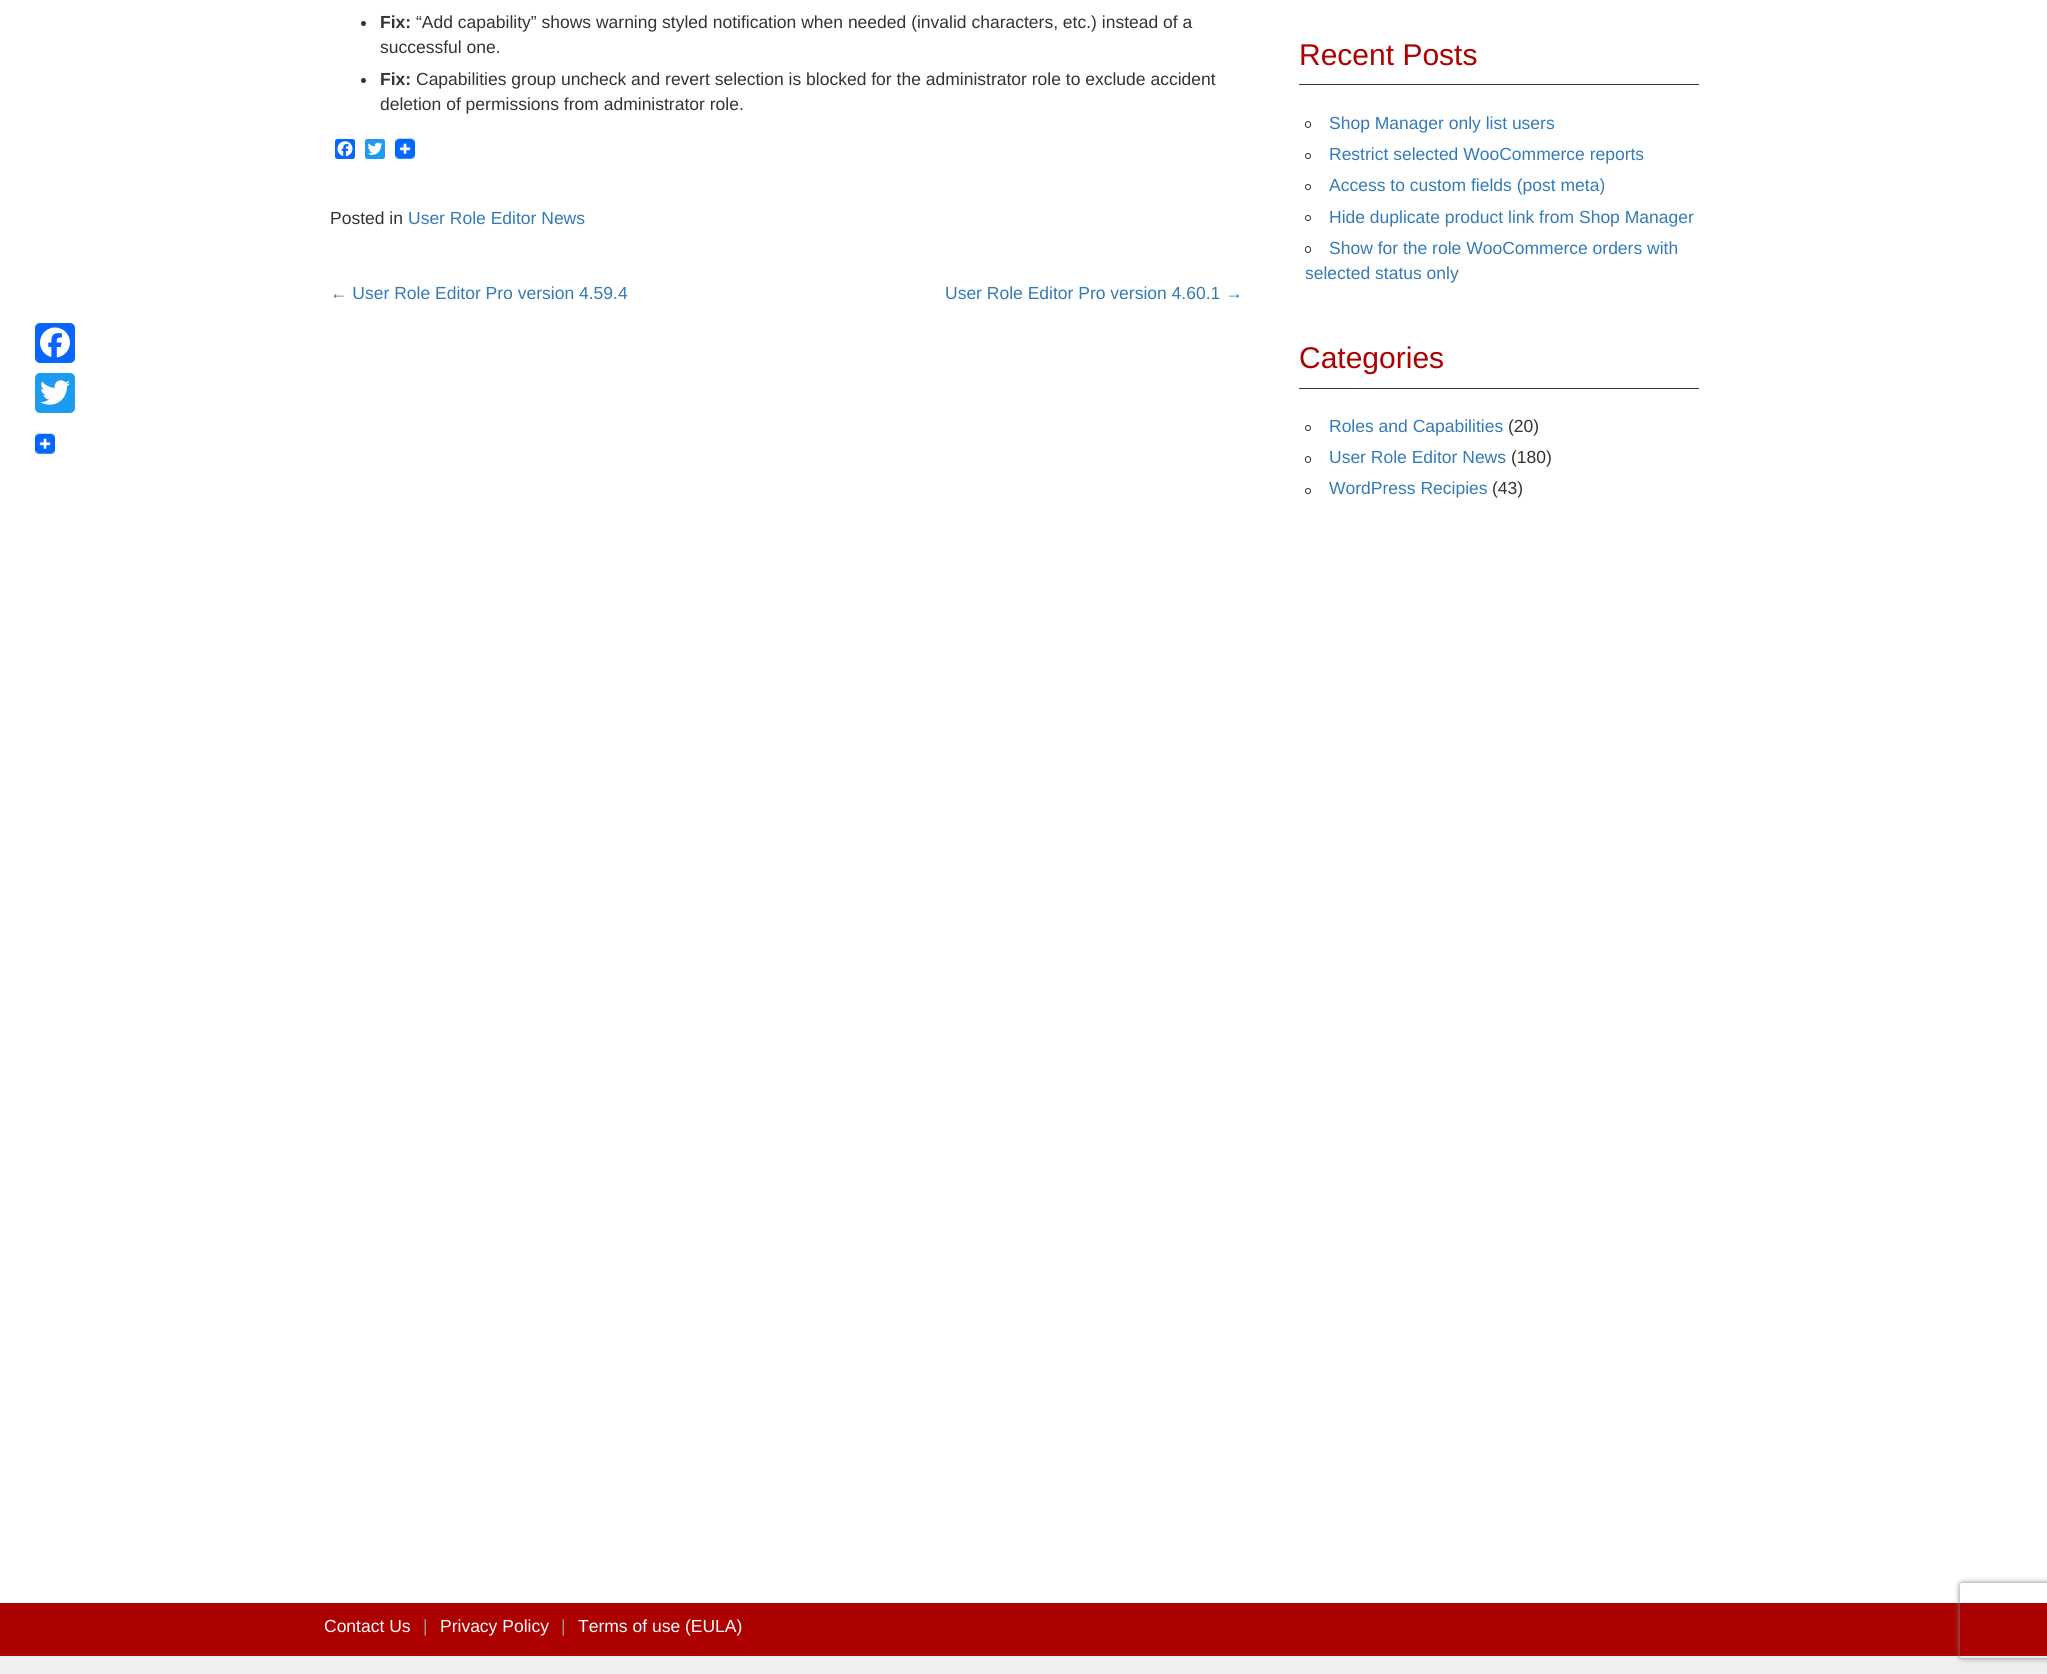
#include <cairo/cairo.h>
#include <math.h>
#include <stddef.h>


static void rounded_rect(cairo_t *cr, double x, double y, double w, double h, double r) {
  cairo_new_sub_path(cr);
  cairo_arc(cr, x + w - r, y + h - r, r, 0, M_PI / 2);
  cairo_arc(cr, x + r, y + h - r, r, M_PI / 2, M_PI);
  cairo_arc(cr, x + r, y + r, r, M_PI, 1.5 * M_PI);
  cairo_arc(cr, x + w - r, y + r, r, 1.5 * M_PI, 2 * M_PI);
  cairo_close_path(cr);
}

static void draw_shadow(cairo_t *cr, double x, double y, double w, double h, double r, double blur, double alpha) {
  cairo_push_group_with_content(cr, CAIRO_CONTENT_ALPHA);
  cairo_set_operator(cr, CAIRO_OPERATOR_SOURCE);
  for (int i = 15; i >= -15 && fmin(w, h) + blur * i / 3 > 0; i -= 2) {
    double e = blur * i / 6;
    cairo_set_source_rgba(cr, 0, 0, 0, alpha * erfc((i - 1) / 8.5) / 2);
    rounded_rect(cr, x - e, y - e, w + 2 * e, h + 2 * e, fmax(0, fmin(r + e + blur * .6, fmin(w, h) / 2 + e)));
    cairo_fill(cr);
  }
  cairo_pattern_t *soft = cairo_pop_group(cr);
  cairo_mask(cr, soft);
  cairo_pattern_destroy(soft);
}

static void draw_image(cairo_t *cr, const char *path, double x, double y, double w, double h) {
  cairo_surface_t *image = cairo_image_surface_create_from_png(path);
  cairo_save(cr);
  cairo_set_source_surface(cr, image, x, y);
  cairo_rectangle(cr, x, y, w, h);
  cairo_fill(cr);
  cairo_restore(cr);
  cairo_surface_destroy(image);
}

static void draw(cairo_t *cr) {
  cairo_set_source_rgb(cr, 1, 1, 1);
  cairo_paint(cr);
  cairo_set_source_rgb(cr, 8 / 255.0, 102 / 255.0, 1);
  rounded_rect(cr, 35, 323, 40, 40, 5);
  cairo_fill(cr);
  draw_image(cr, "images/1.png", 40, 327, 30, 31);
  cairo_set_source_rgb(cr, 29 / 255.0, 155 / 255.0, 240 / 255.0);
  rounded_rect(cr, 35, 373, 40, 40, 5);
  cairo_fill(cr);
  draw_image(cr, "images/2.png", 40, 380, 30, 25);
  draw_image(cr, "images/3.png", 35, 433, 20, 21);
  cairo_set_source_rgb(cr, 51 / 255.0, 51 / 255.0, 51 / 255.0);
  cairo_arc(cr, 363.5, 23.5, 2.5, 0, 2 * M_PI);
  cairo_fill(cr);
  cairo_arc(cr, 363.5, 80.5, 2.5, 0, 2 * M_PI);
  cairo_fill(cr);
  cairo_set_source_rgb(cr, 8 / 255.0, 102 / 255.0, 1);
  rounded_rect(cr, 335, 139, 20, 20, 2.5);
  cairo_fill(cr);
  draw_image(cr, "images/4.png", 337, 141, 16, 16);
  cairo_set_source_rgb(cr, 29 / 255.0, 155 / 255.0, 240 / 255.0);
  rounded_rect(cr, 365, 139, 20, 20, 2.5);
  cairo_fill(cr);
  draw_image(cr, "images/5.png", 367, 142, 16, 13);
  draw_image(cr, "images/6.png", 395, 138, 20, 21);
  cairo_set_source_rgb(cr, 51 / 255.0, 51 / 255.0, 51 / 255.0);
  cairo_rectangle(cr, 1299, 84, 400, 1);
  cairo_fill(cr);
  rounded_rect(cr, 1305.5, 121.5, 5, 6, 2.5);
  cairo_set_line_width(cr, 1);
  cairo_stroke(cr);
  cairo_arc(cr, 1308, 156, 2.5, 0, 2 * M_PI);
  cairo_stroke(cr);
  cairo_arc(cr, 1308, 187, 2.5, 0, 2 * M_PI);
  cairo_stroke(cr);
  cairo_arc(cr, 1308, 218, 2.5, 0, 2 * M_PI);
  cairo_stroke(cr);
  rounded_rect(cr, 1305.5, 246.5, 5, 6, 2.5);
  cairo_stroke(cr);
  cairo_rectangle(cr, 1299, 388, 400, 1);
  cairo_fill(cr);
  cairo_arc(cr, 1308, 428, 2.5, 0, 2 * M_PI);
  cairo_stroke(cr);
  rounded_rect(cr, 1305.5, 456.5, 5, 6, 2.5);
  cairo_stroke(cr);
  cairo_arc(cr, 1308, 491, 2.5, 0, 2 * M_PI);
  cairo_stroke(cr);
  cairo_set_source_rgb(cr, 239 / 255.0, 239 / 255.0, 239 / 255.0);
  cairo_rectangle(cr, 0, 1656, 2047, 18);
  cairo_fill(cr);
  cairo_set_source_rgb(cr, 173 / 255.0, 0, 0);
  cairo_rectangle(cr, 0, 1603, 2047, 53);
  cairo_fill(cr);
  cairo_save(cr);
  cairo_set_fill_rule(cr, CAIRO_FILL_RULE_EVEN_ODD);
  cairo_new_path(cr);
  cairo_move_to(cr, 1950, 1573);
  cairo_line_to(cr, 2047, 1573);
  cairo_line_to(cr, 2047, 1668);
  cairo_line_to(cr, 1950, 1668);
  cairo_close_path(cr);
  cairo_move_to(cr, 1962.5, 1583);
  cairo_line_to(cr, 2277.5, 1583);
  cairo_curve_to(cr, 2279, 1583, 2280, 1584, 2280, 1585.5);
  cairo_line_to(cr, 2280, 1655.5);
  cairo_curve_to(cr, 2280, 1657, 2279, 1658, 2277.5, 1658);
  cairo_line_to(cr, 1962.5, 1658);
  cairo_curve_to(cr, 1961, 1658, 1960, 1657, 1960, 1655.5);
  cairo_line_to(cr, 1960, 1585.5);
  cairo_curve_to(cr, 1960, 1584, 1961, 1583, 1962.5, 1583);
  cairo_close_path(cr);
  cairo_clip(cr);
  cairo_set_source_rgb(cr, 128 / 255.0, 128 / 255.0, 128 / 255.0);
  draw_shadow(cr, 1960, 1583, 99, 75, 2.5, 3, 1);
  cairo_restore(cr);
  cairo_select_font_face(cr, "Liberation Sans", CAIRO_FONT_SLANT_NORMAL, CAIRO_FONT_WEIGHT_BOLD);
  cairo_set_font_size(cr, 17.5);
  cairo_set_source_rgb(cr, 51 / 255.0, 51 / 255.0, 51 / 255.0);
  cairo_move_to(cr, 380, 28);
  cairo_show_text(cr, "Fix:");
  cairo_select_font_face(cr, "Liberation Sans", CAIRO_FONT_SLANT_NORMAL, CAIRO_FONT_WEIGHT_NORMAL);
  cairo_move_to(cr, 416, 28);
  cairo_show_text(cr, "“Add capability” shows warning styled notification when needed (invalid characters, etc.) instead of a");
  cairo_move_to(cr, 380, 53);
  cairo_show_text(cr, "successful one.");
  cairo_select_font_face(cr, "Liberation Sans", CAIRO_FONT_SLANT_NORMAL, CAIRO_FONT_WEIGHT_BOLD);
  cairo_move_to(cr, 380, 85);
  cairo_show_text(cr, "Fix:");
  cairo_select_font_face(cr, "Liberation Sans", CAIRO_FONT_SLANT_NORMAL, CAIRO_FONT_WEIGHT_NORMAL);
  cairo_move_to(cr, 416, 85);
  cairo_show_text(cr, "Capabilities group uncheck and revert selection is blocked for the administrator role to exclude accident");
  cairo_move_to(cr, 380, 110);
  cairo_show_text(cr, "deletion of permissions from administrator role.");
  cairo_move_to(cr, 330, 224);
  cairo_show_text(cr, "Posted in");
  cairo_set_source_rgb(cr, 51 / 255.0, 122 / 255.0, 183 / 255.0);
  cairo_move_to(cr, 408, 224);
  cairo_show_text(cr, "User Role Editor News");
  cairo_move_to(cr, 330, 299);
  cairo_show_text(cr, "← User Role Editor Pro version 4.59.4");
  cairo_move_to(cr, 945, 299);
  cairo_show_text(cr, "User Role Editor Pro version 4.60.1 →");
  cairo_set_font_size(cr, 30);
  cairo_set_source_rgb(cr, 173 / 255.0, 0, 0);
  cairo_move_to(cr, 1299, 65);
  cairo_show_text(cr, "Recent Posts");
  cairo_set_font_size(cr, 17.5);
  cairo_set_source_rgb(cr, 51 / 255.0, 122 / 255.0, 183 / 255.0);
  cairo_move_to(cr, 1329, 129);
  cairo_show_text(cr, "Shop Manager only list users");
  cairo_move_to(cr, 1329, 160);
  cairo_show_text(cr, "Restrict selected WooCommerce reports");
  cairo_move_to(cr, 1329, 191);
  cairo_show_text(cr, "Access to custom fields (post meta)");
  cairo_move_to(cr, 1329, 223);
  cairo_show_text(cr, "Hide duplicate product link from Shop Manager");
  cairo_move_to(cr, 1329, 254);
  cairo_show_text(cr, "Show for the role WooCommerce orders with");
  cairo_move_to(cr, 1305, 279);
  cairo_show_text(cr, "selected status only");
  cairo_set_font_size(cr, 30);
  cairo_set_source_rgb(cr, 173 / 255.0, 0, 0);
  cairo_move_to(cr, 1299, 368);
  cairo_show_text(cr, "Categories");
  cairo_set_font_size(cr, 17.5);
  cairo_set_source_rgb(cr, 51 / 255.0, 122 / 255.0, 183 / 255.0);
  cairo_move_to(cr, 1329, 432);
  cairo_show_text(cr, "Roles and Capabilities");
  cairo_set_source_rgb(cr, 51 / 255.0, 51 / 255.0, 51 / 255.0);
  cairo_move_to(cr, 1508, 432);
  cairo_show_text(cr, "(20)");
  cairo_set_source_rgb(cr, 51 / 255.0, 122 / 255.0, 183 / 255.0);
  cairo_move_to(cr, 1329, 463);
  cairo_show_text(cr, "User Role Editor News");
  cairo_set_source_rgb(cr, 51 / 255.0, 51 / 255.0, 51 / 255.0);
  cairo_move_to(cr, 1511, 463);
  cairo_show_text(cr, "(180)");
  cairo_set_source_rgb(cr, 51 / 255.0, 122 / 255.0, 183 / 255.0);
  cairo_move_to(cr, 1329, 494);
  cairo_show_text(cr, "WordPress Recipies");
  cairo_set_source_rgb(cr, 51 / 255.0, 51 / 255.0, 51 / 255.0);
  cairo_move_to(cr, 1492, 494);
  cairo_show_text(cr, "(43)");
  cairo_set_source_rgb(cr, 1, 1, 1);
  cairo_move_to(cr, 324, 1632);
  cairo_show_text(cr, "Contact Us");
  cairo_set_source_rgb(cr, 153 / 255.0, 153 / 255.0, 153 / 255.0);
  cairo_move_to(cr, 423, 1632);
  cairo_show_text(cr, "|");
  cairo_set_source_rgb(cr, 1, 1, 1);
  cairo_move_to(cr, 440, 1632);
  cairo_show_text(cr, "Privacy Policy");
  cairo_set_source_rgb(cr, 153 / 255.0, 153 / 255.0, 153 / 255.0);
  cairo_move_to(cr, 561, 1632);
  cairo_show_text(cr, "|");
  cairo_set_source_rgb(cr, 1, 1, 1);
  cairo_move_to(cr, 578, 1632);
  cairo_show_text(cr, "Terms of use (EULA)");
}

int main(void) {
  cairo_surface_t *surface = cairo_image_surface_create(CAIRO_FORMAT_RGB24, 2047, 1674);
  cairo_t *cr = cairo_create(surface);
  cairo_font_options_t *options = cairo_font_options_create();
  cairo_font_options_set_hint_metrics(options, CAIRO_HINT_METRICS_OFF);
  cairo_font_options_set_hint_style(options, CAIRO_HINT_STYLE_NONE);
  cairo_set_font_options(cr, options);
  cairo_set_miter_limit(cr, 4);
  draw(cr);
  cairo_surface_write_to_png(surface, "out.png");
  cairo_font_options_destroy(options);
  cairo_destroy(cr);
  cairo_surface_destroy(surface);
  return 0;
}
